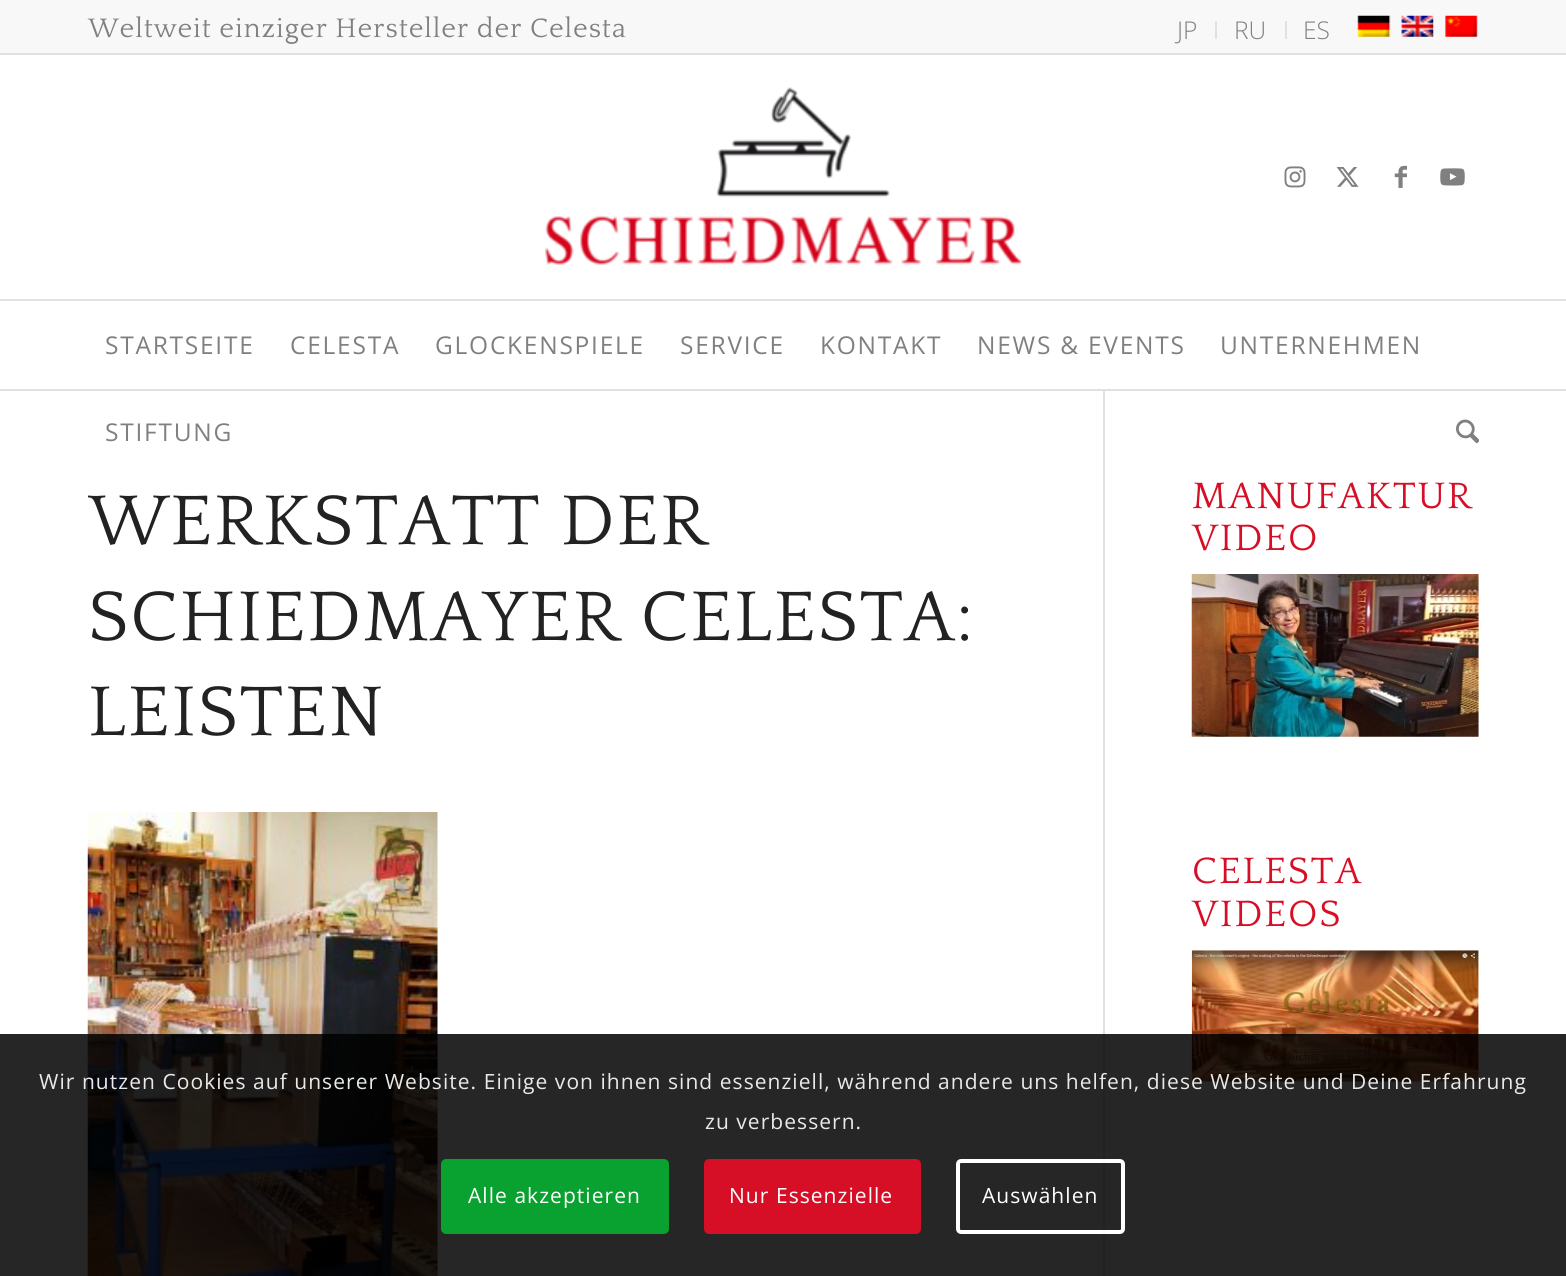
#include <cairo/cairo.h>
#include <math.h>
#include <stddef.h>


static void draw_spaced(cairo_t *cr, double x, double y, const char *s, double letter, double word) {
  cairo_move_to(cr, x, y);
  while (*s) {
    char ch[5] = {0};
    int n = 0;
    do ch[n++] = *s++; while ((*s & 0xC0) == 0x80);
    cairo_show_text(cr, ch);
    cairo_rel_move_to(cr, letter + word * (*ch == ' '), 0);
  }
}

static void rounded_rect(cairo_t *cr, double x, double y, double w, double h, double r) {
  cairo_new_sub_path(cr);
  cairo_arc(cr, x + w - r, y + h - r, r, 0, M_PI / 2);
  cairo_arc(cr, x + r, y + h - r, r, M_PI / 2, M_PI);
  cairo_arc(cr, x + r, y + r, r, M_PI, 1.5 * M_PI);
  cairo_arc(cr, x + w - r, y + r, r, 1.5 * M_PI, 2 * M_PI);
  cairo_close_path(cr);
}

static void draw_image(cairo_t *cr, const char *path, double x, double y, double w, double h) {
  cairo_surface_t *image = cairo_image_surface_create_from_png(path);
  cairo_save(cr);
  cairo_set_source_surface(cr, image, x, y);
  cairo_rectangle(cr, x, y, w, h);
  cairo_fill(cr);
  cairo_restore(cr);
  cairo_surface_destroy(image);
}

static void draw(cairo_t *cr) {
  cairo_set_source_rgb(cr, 1, 1, 1);
  cairo_paint(cr);
  cairo_set_source_rgb(cr, 248 / 255.0, 248 / 255.0, 248 / 255.0);
  cairo_rectangle(cr, 0, 0, 1566, 53);
  cairo_fill(cr);
  cairo_set_source_rgb(cr, 225 / 255.0, 225 / 255.0, 225 / 255.0);
  cairo_rectangle(cr, 0, 53, 1566, 2);
  cairo_fill(cr);
  cairo_rectangle(cr, 1215, 21, 2, 18);
  cairo_fill(cr);
  cairo_rectangle(cr, 1285, 21, 2, 18);
  cairo_fill(cr);
  draw_image(cr, "images/1.png", 1357, 15, 34, 22);
  draw_image(cr, "images/2.png", 1401, 15, 33, 22);
  draw_image(cr, "images/3.png", 1445, 15, 33, 22);
  cairo_rectangle(cr, 1103, 389, 2, 887);
  cairo_fill(cr);
  cairo_rectangle(cr, 0, 389, 1566, 2);
  cairo_fill(cr);
  draw_image(cr, "images/4.png", 545, 87, 477, 178);
  draw_image(cr, "images/5.png", 1284, 166, 22, 22);
  draw_image(cr, "images/6.png", 1336, 167, 23, 20);
  draw_image(cr, "images/7.png", 1394, 165, 13, 23);
  draw_image(cr, "images/8.png", 1440, 168, 25, 18);
  cairo_rectangle(cr, 0, 299, 1566, 2);
  cairo_fill(cr);
  draw_image(cr, "images/9.png", 1456, 419, 23, 25);
  draw_image(cr, "images/10.png", 87, 812, 351, 464);
  draw_image(cr, "images/11.png", 1191, 574, 288, 163);
  draw_image(cr, "images/12.png", 1191, 950, 288, 132);
  cairo_set_source_rgba(cr, 0, 0, 0, 0.85);
  cairo_rectangle(cr, 0, 1034, 1566, 242);
  cairo_fill(cr);
  cairo_set_source_rgb(cr, 9 / 255.0, 161 / 255.0, 47 / 255.0);
  rounded_rect(cr, 443, 1161, 224, 71, 3);
  cairo_fill_preserve(cr);
  cairo_set_line_width(cr, 4);
  cairo_stroke(cr);
  cairo_set_source_rgb(cr, 214 / 255.0, 15 / 255.0, 38 / 255.0);
  rounded_rect(cr, 706, 1161, 213, 71, 3);
  cairo_fill_preserve(cr);
  cairo_stroke(cr);
  rounded_rect(cr, 958, 1161, 165, 71, 3);
  cairo_set_source_rgb(cr, 1, 1, 1);
  cairo_stroke(cr);
  cairo_select_font_face(cr, "Quattrocento", CAIRO_FONT_SLANT_NORMAL, CAIRO_FONT_WEIGHT_NORMAL);
  cairo_set_font_size(cr, 28);
  cairo_set_source_rgb(cr, 128 / 255.0, 128 / 255.0, 128 / 255.0);
  draw_spaced(cr, 88, 37, "Weltweit einziger Hersteller der Celesta", 0.9, 0);
  cairo_select_font_face(cr, "Open Sans Light", CAIRO_FONT_SLANT_NORMAL, CAIRO_FONT_WEIGHT_NORMAL);
  cairo_set_font_size(cr, 24.5);
  cairo_move_to(cr, 1177, 39);
  cairo_show_text(cr, "JP");
  cairo_move_to(cr, 1234, 39);
  cairo_show_text(cr, "RU");
  cairo_move_to(cr, 1303, 39);
  cairo_show_text(cr, "ES");
  cairo_select_font_face(cr, "Open Sans", CAIRO_FONT_SLANT_NORMAL, CAIRO_FONT_WEIGHT_NORMAL);
  draw_spaced(cr, 105, 354, "STARTSEITE", 1.75, 0);
  draw_spaced(cr, 290, 354, "CELESTA", 1.75, 0);
  draw_spaced(cr, 435, 354, "GLOCKENSPIELE", 1.75, 0);
  draw_spaced(cr, 680, 354, "SERVICE", 1.75, 0);
  draw_spaced(cr, 820, 354, "KONTAKT", 1.75, 0);
  draw_spaced(cr, 977, 354, "NEWS & EVENTS", 1.75, 0);
  draw_spaced(cr, 1220, 354, "UNTERNEHMEN", 1.75, 0);
  draw_spaced(cr, 105, 441, "STIFTUNG", 1.75, 0);
  cairo_save(cr);
  cairo_rectangle(cr, 88, 476, 1015, 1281);
  cairo_clip(cr);
  cairo_select_font_face(cr, "Quattrocento", CAIRO_FONT_SLANT_NORMAL, CAIRO_FONT_WEIGHT_NORMAL);
  cairo_set_font_size(cr, 73.5);
  cairo_set_source_rgb(cr, 34 / 255.0, 34 / 255.0, 34 / 255.0);
  draw_spaced(cr, 88, 544, "WERKSTATT DER", 1.75, 0);
  cairo_restore(cr);
  cairo_select_font_face(cr, "Quattrocento", CAIRO_FONT_SLANT_NORMAL, CAIRO_FONT_WEIGHT_NORMAL);
  cairo_set_font_size(cr, 73.5);
  cairo_set_source_rgb(cr, 34 / 255.0, 34 / 255.0, 34 / 255.0);
  draw_spaced(cr, 88, 640, "SCHIEDMAYER CELESTA:", 1.75, 0);
  draw_spaced(cr, 88, 735, "LEISTEN", 1.75, 0);
  cairo_set_font_size(cr, 38.5);
  cairo_set_source_rgb(cr, 214 / 255.0, 15 / 255.0, 38 / 255.0);
  draw_spaced(cr, 1192, 508, "MANUFAKTUR", 1.75, 0);
  draw_spaced(cr, 1192, 550, "VIDEO", 1.75, 0);
  draw_spaced(cr, 1192, 883, "CELESTA", 1.75, 0);
  draw_spaced(cr, 1192, 926, "VIDEOS", 1.75, 0);
  cairo_select_font_face(cr, "Open Sans", CAIRO_FONT_SLANT_NORMAL, CAIRO_FONT_WEIGHT_NORMAL);
  cairo_set_font_size(cr, 21);
  cairo_set_source_rgb(cr, 233 / 255.0, 233 / 255.0, 233 / 255.0);
  draw_spaced(cr, 39, 1089, "Wir nutzen Cookies auf unserer Website. Einige von ihnen sind essenziell, während andere uns helfen, diese Website und Deine Erfahrung", 1.05, 0);
  draw_spaced(cr, 705, 1129, "zu verbessern.", 1.05, 0);
  cairo_set_source_rgb(cr, 1, 1, 1);
  draw_spaced(cr, 468, 1203, "Alle akzeptieren", 1.05, 0);
  draw_spaced(cr, 729, 1203, "Nur Essenzielle", 1.05, 0);
  draw_spaced(cr, 982, 1203, "Auswählen", 1.05, 0);
}

int main(void) {
  cairo_surface_t *surface = cairo_image_surface_create(CAIRO_FORMAT_RGB24, 1566, 1276);
  cairo_t *cr = cairo_create(surface);
  cairo_font_options_t *options = cairo_font_options_create();
  cairo_font_options_set_hint_metrics(options, CAIRO_HINT_METRICS_OFF);
  cairo_font_options_set_hint_style(options, CAIRO_HINT_STYLE_NONE);
  cairo_set_font_options(cr, options);
  cairo_set_miter_limit(cr, 4);
  draw(cr);
  cairo_surface_write_to_png(surface, "out.png");
  cairo_font_options_destroy(options);
  cairo_destroy(cr);
  cairo_surface_destroy(surface);
  return 0;
}
